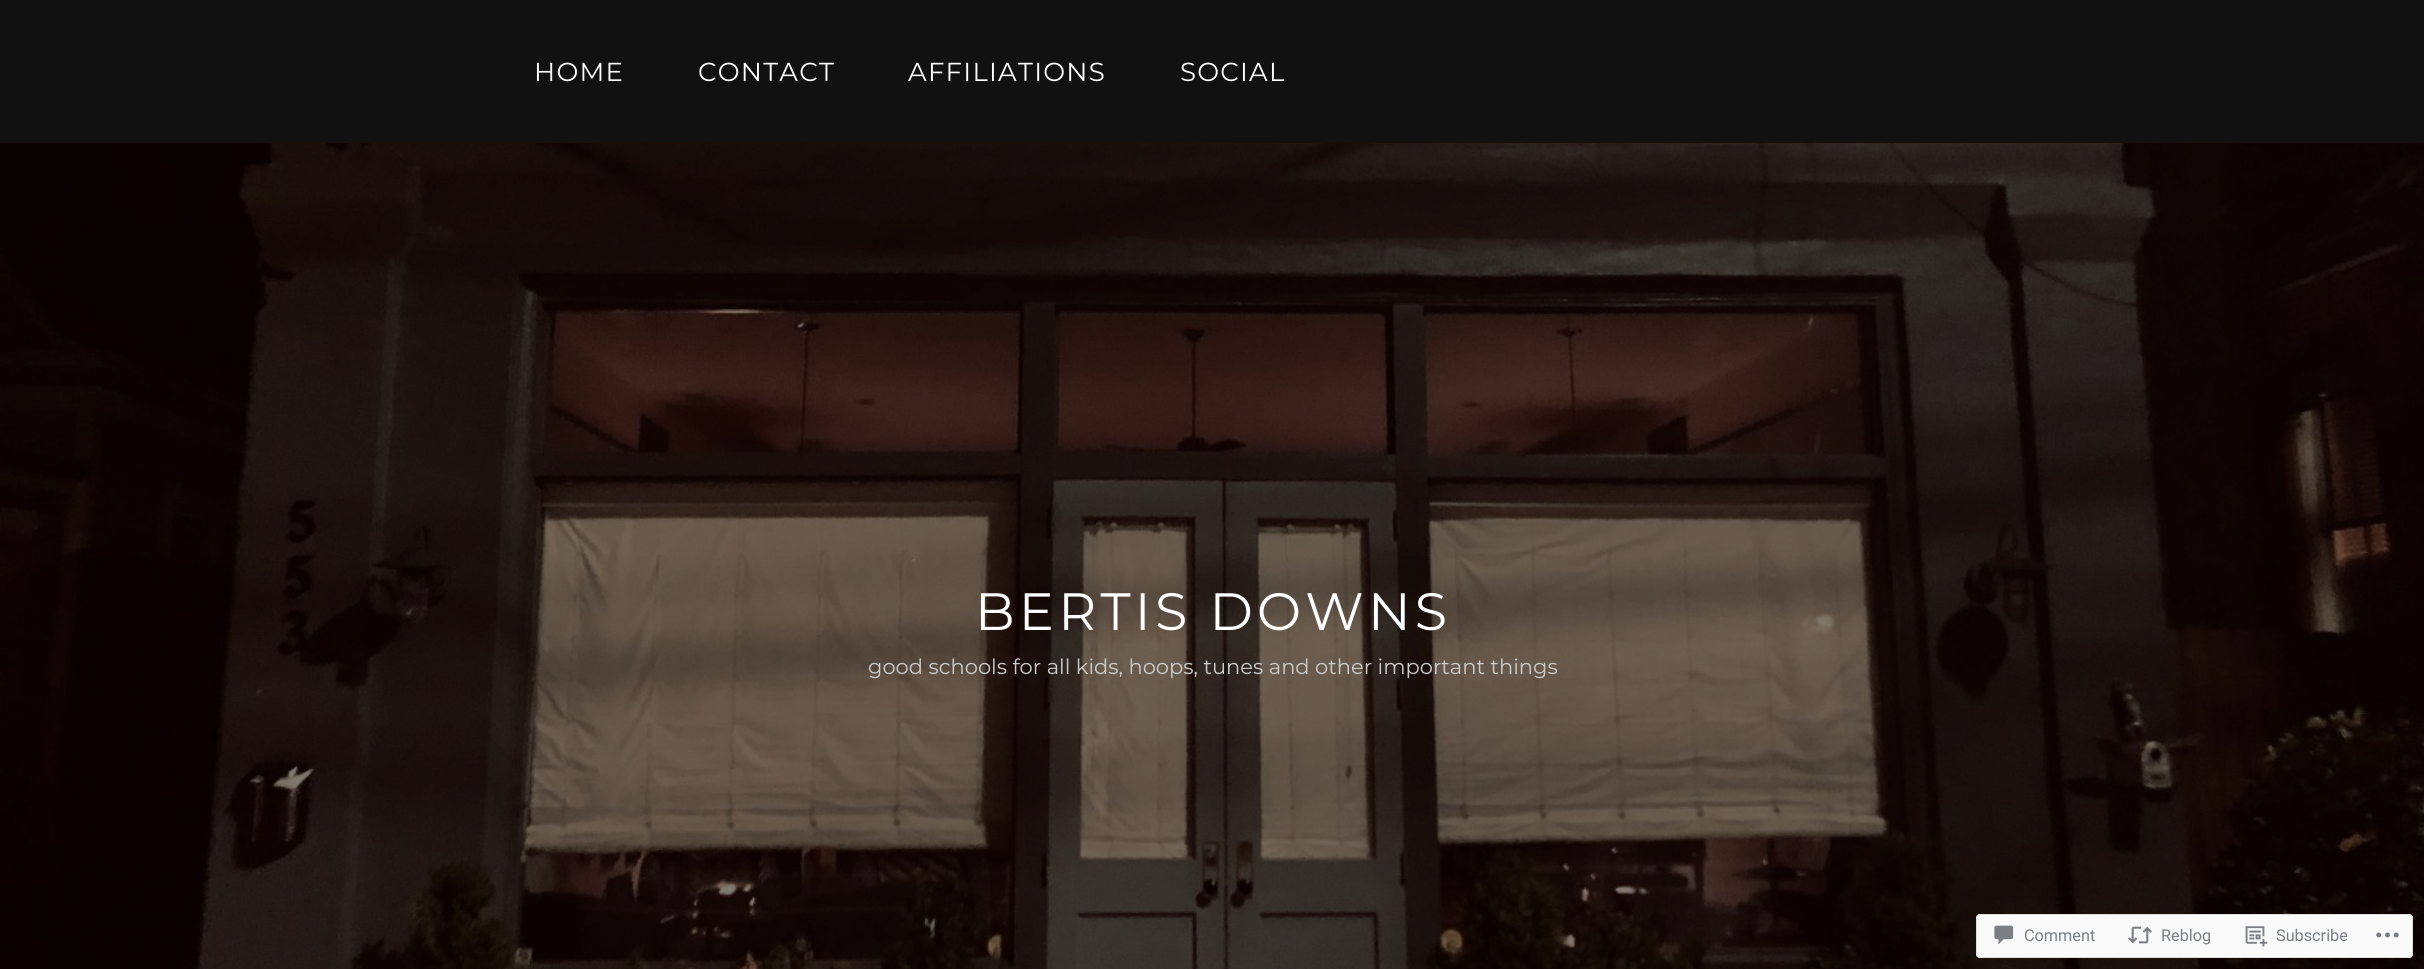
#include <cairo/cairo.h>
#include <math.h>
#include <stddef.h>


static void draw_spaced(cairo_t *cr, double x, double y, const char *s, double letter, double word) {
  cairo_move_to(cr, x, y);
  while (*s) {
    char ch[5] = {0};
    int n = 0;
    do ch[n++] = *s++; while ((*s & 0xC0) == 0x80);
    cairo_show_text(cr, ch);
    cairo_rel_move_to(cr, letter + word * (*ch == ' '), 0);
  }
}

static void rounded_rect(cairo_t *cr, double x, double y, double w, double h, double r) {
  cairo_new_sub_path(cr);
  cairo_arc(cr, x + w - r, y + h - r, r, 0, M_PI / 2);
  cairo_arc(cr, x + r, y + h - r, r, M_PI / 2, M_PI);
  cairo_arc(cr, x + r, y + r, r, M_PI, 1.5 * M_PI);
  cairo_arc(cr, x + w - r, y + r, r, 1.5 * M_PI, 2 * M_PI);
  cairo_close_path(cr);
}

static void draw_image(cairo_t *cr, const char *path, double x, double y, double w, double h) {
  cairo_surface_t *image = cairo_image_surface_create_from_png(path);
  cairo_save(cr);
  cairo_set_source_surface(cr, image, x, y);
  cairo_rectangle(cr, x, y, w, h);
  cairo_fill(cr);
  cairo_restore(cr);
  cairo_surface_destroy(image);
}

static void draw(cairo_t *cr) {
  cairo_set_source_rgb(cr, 1, 1, 1);
  cairo_paint(cr);
  cairo_set_source_rgb(cr, 17 / 255.0, 17 / 255.0, 17 / 255.0);
  cairo_rectangle(cr, 0, 0, 2424, 143);
  cairo_fill(cr);
  draw_image(cr, "images/1.png", 0, 143, 2424, 826);
  cairo_set_source_rgba(cr, 1, 1, 1, 0.98);
  rounded_rect(cr, 1976, 914, 437, 44, 4);
  cairo_fill(cr);
  rounded_rect(cr, 1976.5, 914.5, 436, 43, 3.5);
  cairo_set_source_rgba(cr, 220 / 255.0, 220 / 255.0, 222 / 255.0, 0.98);
  cairo_set_line_width(cr, 1);
  cairo_stroke(cr);
  draw_image(cr, "images/2.png", 1994, 925, 20, 20);
  draw_image(cr, "images/3.png", 2128, 926, 24, 18);
  draw_image(cr, "images/4.png", 2245, 926, 23, 21);
  draw_image(cr, "images/5.png", 2376, 932, 23, 6);
  cairo_select_font_face(cr, "Montserrat", CAIRO_FONT_SLANT_NORMAL, CAIRO_FONT_WEIGHT_NORMAL);
  cairo_set_font_size(cr, 26);
  cairo_set_source_rgb(cr, 1, 1, 1);
  draw_spaced(cr, 534, 81, "HOME", 1.25, 0);
  draw_spaced(cr, 698, 81, "CONTACT", 1.25, 0);
  draw_spaced(cr, 908, 81, "AFFILIATIONS", 1.25, 0);
  draw_spaced(cr, 1180, 81, "SOCIAL", 1.25, 0);
  cairo_set_font_size(cr, 52.5);
  draw_spaced(cr, 975, 630, "BERTIS DOWNS", 4.25, 0);
  cairo_set_font_size(cr, 21);
  cairo_set_source_rgb(cr, 204 / 255.0, 204 / 255.0, 204 / 255.0);
  cairo_move_to(cr, 868, 674);
  cairo_show_text(cr, "good schools for all kids, hoops, tunes and other important things");
  cairo_select_font_face(cr, "Roboto", CAIRO_FONT_SLANT_NORMAL, CAIRO_FONT_WEIGHT_NORMAL);
  cairo_set_font_size(cr, 16.25);
  cairo_set_source_rgb(cr, 123 / 255.0, 127 / 255.0, 132 / 255.0);
  cairo_move_to(cr, 2024, 941);
  cairo_show_text(cr, "Comment");
  cairo_move_to(cr, 2161, 941);
  cairo_show_text(cr, "Reblog");
  cairo_move_to(cr, 2276, 941);
  cairo_show_text(cr, "Subscribe");
}

int main(void) {
  cairo_surface_t *surface = cairo_image_surface_create(CAIRO_FORMAT_RGB24, 2424, 969);
  cairo_t *cr = cairo_create(surface);
  cairo_font_options_t *options = cairo_font_options_create();
  cairo_font_options_set_hint_metrics(options, CAIRO_HINT_METRICS_OFF);
  cairo_font_options_set_hint_style(options, CAIRO_HINT_STYLE_NONE);
  cairo_set_font_options(cr, options);
  cairo_set_miter_limit(cr, 4);
  draw(cr);
  cairo_surface_write_to_png(surface, "out.png");
  cairo_font_options_destroy(options);
  cairo_destroy(cr);
  cairo_surface_destroy(surface);
  return 0;
}
